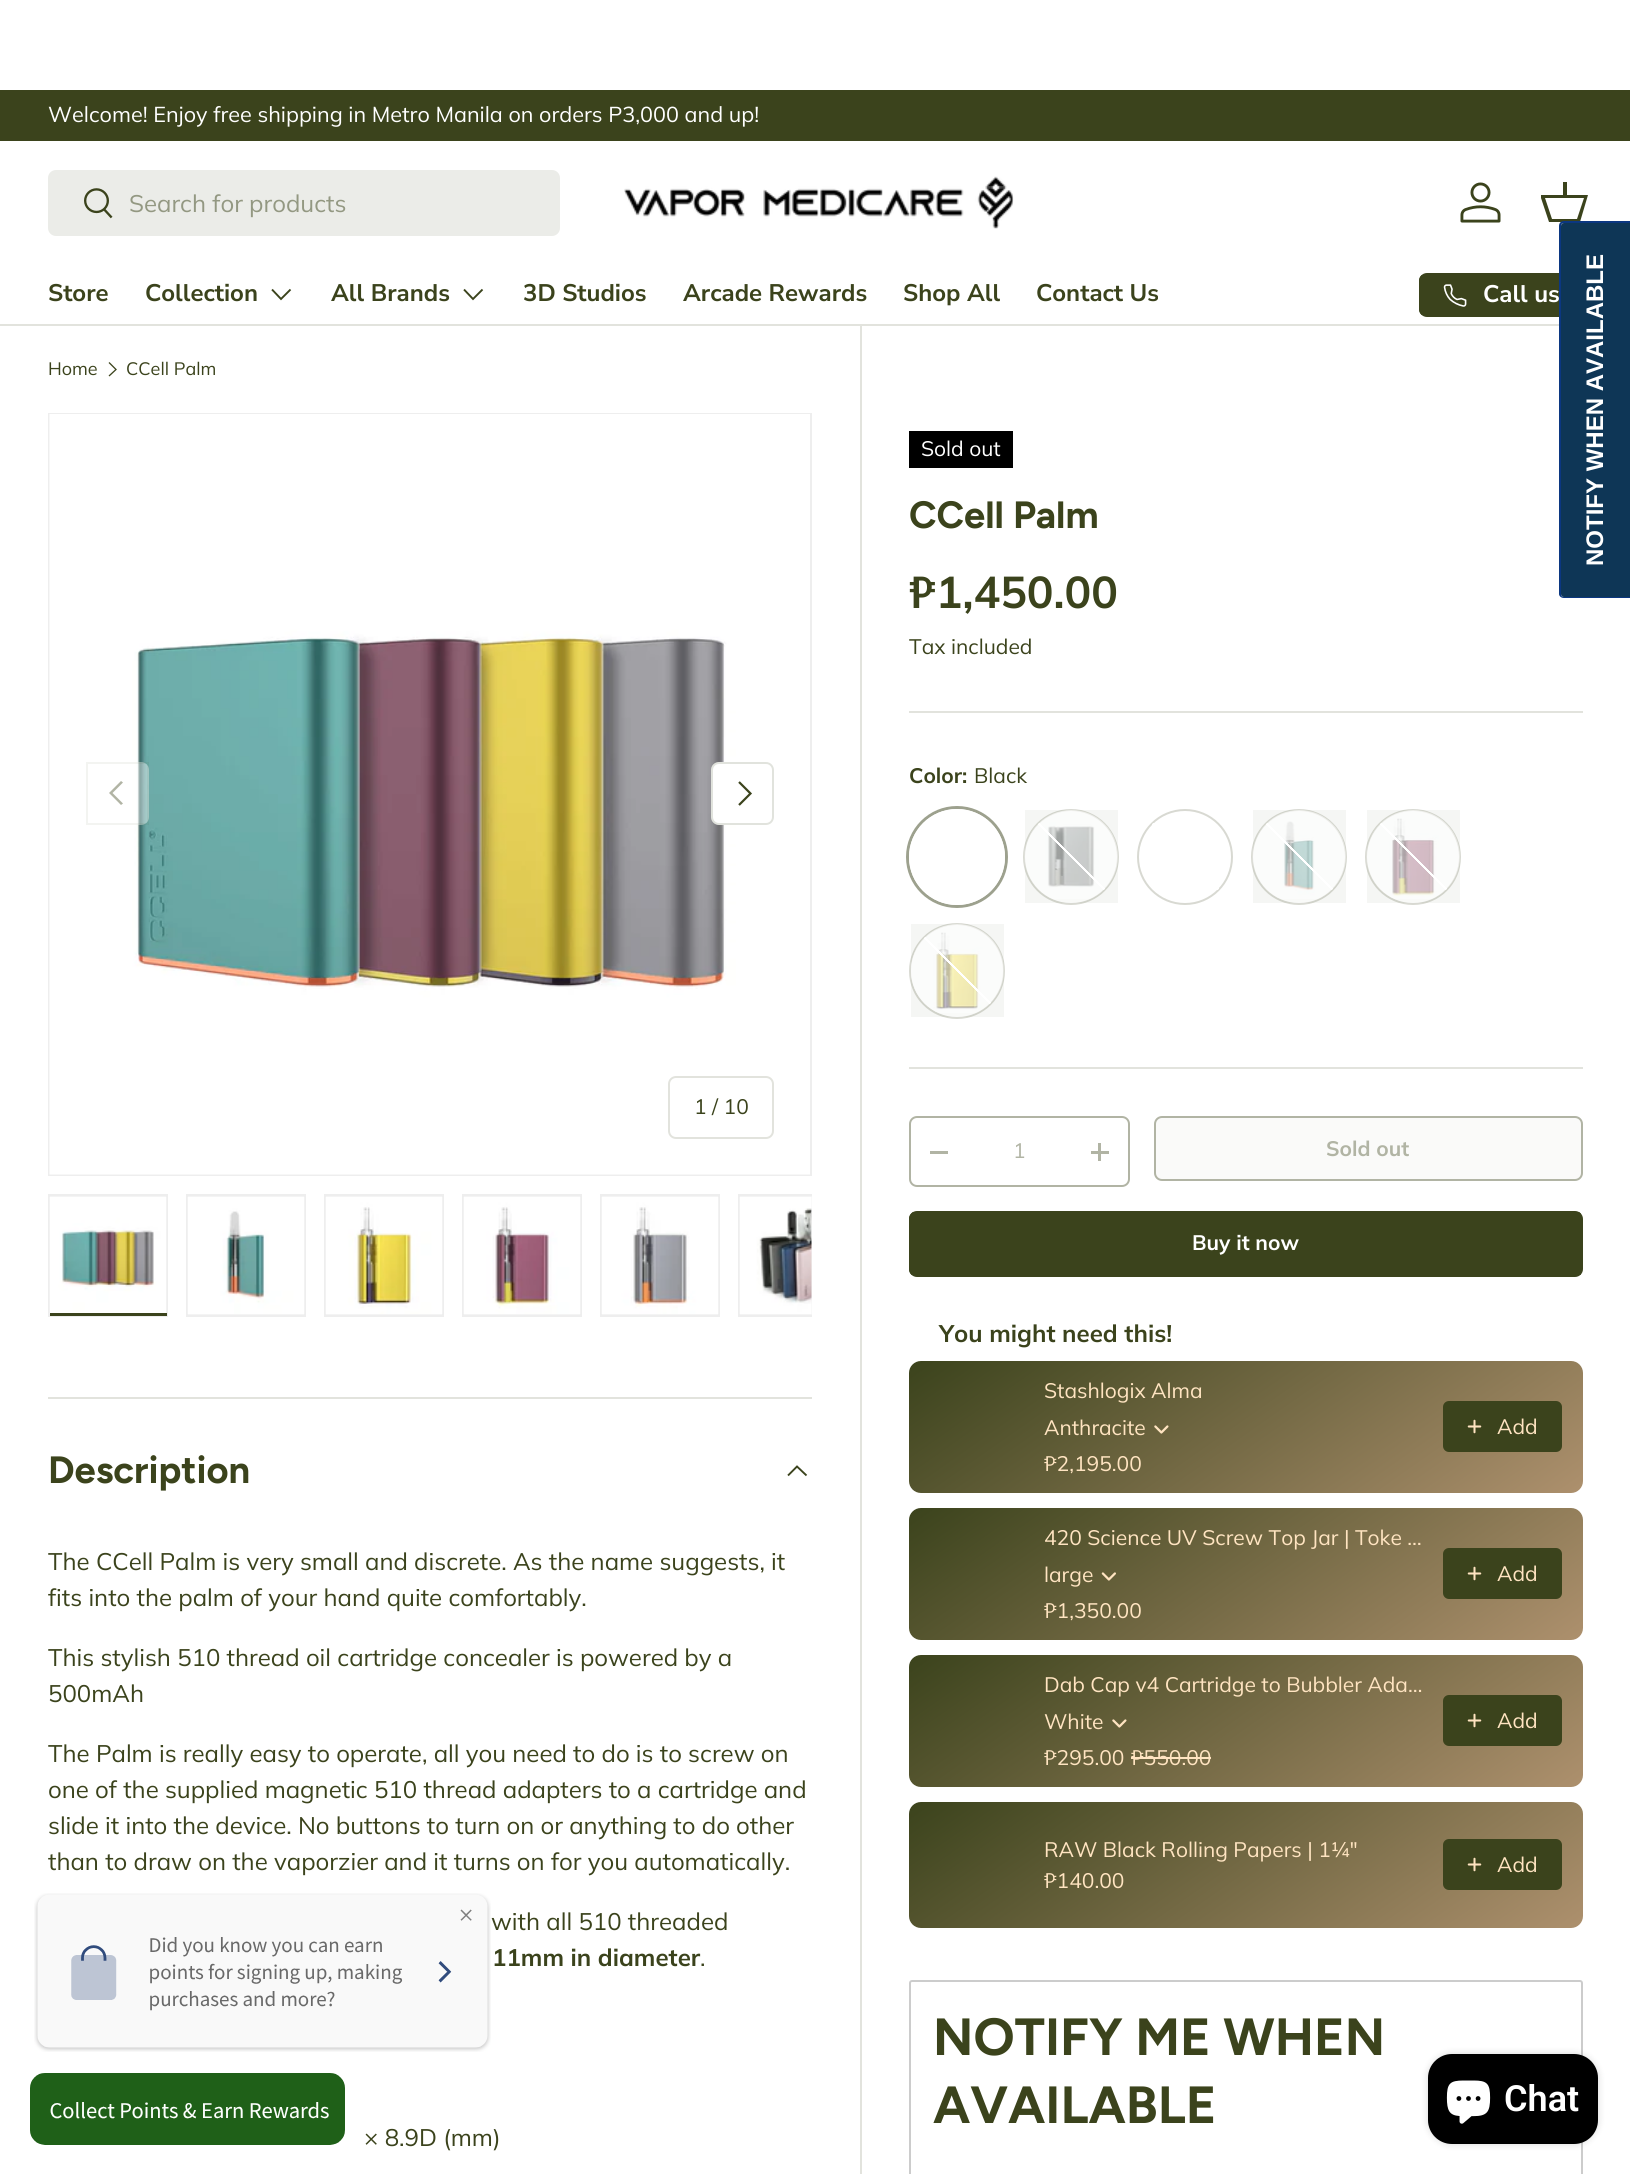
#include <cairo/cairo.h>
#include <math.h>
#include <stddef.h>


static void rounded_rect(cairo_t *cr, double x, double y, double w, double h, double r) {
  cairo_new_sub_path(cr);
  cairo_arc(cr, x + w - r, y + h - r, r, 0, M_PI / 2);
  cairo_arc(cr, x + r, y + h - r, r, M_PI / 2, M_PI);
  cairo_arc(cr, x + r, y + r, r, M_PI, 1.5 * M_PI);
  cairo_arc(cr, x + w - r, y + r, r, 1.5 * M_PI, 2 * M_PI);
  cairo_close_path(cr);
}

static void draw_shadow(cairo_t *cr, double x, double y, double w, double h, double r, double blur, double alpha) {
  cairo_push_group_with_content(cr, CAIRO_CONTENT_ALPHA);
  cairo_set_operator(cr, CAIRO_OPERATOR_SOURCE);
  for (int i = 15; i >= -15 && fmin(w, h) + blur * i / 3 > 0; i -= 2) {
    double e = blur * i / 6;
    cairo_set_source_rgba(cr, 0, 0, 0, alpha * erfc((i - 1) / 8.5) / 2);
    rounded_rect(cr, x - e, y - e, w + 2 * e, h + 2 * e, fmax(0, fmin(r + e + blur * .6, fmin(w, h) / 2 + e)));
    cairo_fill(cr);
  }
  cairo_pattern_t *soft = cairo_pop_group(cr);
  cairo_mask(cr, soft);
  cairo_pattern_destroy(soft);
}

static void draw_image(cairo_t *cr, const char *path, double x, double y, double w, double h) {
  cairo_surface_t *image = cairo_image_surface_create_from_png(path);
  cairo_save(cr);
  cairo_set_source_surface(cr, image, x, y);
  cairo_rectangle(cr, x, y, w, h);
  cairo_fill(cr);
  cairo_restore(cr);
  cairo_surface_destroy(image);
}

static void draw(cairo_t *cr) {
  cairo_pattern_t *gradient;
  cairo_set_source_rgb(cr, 1, 1, 1);
  cairo_paint(cr);
  cairo_set_source_rgb(cr, 59 / 255.0, 67 / 255.0, 28 / 255.0);
  cairo_rectangle(cr, 0, 90, 1630, 51);
  cairo_fill(cr);
  cairo_set_source_rgb(cr, 226 / 255.0, 227 / 255.0, 221 / 255.0);
  cairo_rectangle(cr, 0, 324, 1559, 2);
  cairo_fill(cr);
  cairo_set_source_rgb(cr, 235 / 255.0, 236 / 255.0, 232 / 255.0);
  rounded_rect(cr, 48, 170, 512, 66, 8);
  cairo_fill(cr);
  draw_image(cr, "images/1.png", 84, 188, 29, 31);
  draw_image(cr, "images/2.png", 624, 176, 390, 53);
  draw_image(cr, "images/3.png", 1460, 182, 41, 41);
  cairo_save(cr);
  cairo_rectangle(cr, 1541, 179, 48, 48);
  cairo_clip(cr);
  cairo_set_source_rgb(cr, 59 / 255.0, 67 / 255.0, 28 / 255.0);
  cairo_new_path(cr);
  cairo_move_to(cr, 1563, 195);
  cairo_line_to(cr, 1563, 182);
  cairo_line_to(cr, 1567, 182);
  cairo_line_to(cr, 1567, 195);
  cairo_line_to(cr, 1588, 195);
  cairo_line_to(cr, 1580, 222);
  cairo_line_to(cr, 1549, 222);
  cairo_line_to(cr, 1540, 195);
  cairo_close_path(cr);
  cairo_move_to(cr, 1545, 198);
  cairo_line_to(cr, 1552, 219);
  cairo_line_to(cr, 1577, 219);
  cairo_line_to(cr, 1584, 198);
  cairo_close_path(cr);
  cairo_fill(cr);
  cairo_restore(cr);
  cairo_new_path(cr);
  cairo_move_to(cr, 290.5, 289.5);
  cairo_line_to(cr, 281, 299);
  cairo_line_to(cr, 272, 289.5);
  cairo_set_source_rgb(cr, 59 / 255.0, 67 / 255.0, 28 / 255.0);
  cairo_set_line_width(cr, 1.9);
  cairo_stroke(cr);
  cairo_new_path(cr);
  cairo_move_to(cr, 482.5, 289.5);
  cairo_line_to(cr, 473, 299);
  cairo_line_to(cr, 464, 289.5);
  cairo_stroke(cr);
  cairo_save(cr);
  rounded_rect(cr, 1419, 273, 164, 44, 8);
  cairo_clip(cr);
  gradient = cairo_pattern_create_linear(1109, 237, 1572, 352);
  cairo_pattern_add_color_stop_rgba(gradient, 0.6, 97 / 255.0, 104 / 255.0, 68 / 255.0, 1);
  cairo_pattern_add_color_stop_rgba(gradient, 0.6, 59 / 255.0, 67 / 255.0, 28 / 255.0, 1);
  cairo_pattern_add_color_stop_rgba(gradient, 1, 59 / 255.0, 67 / 255.0, 28 / 255.0, 1);
  cairo_set_source(cr, gradient);
  cairo_pattern_destroy(gradient);
  cairo_rectangle(cr, 1419, 275, 140, 40);
  cairo_fill(cr);
  cairo_restore(cr);
  rounded_rect(cr, 1420, 274, 162, 42, 7);
  cairo_set_line_width(cr, 2);
  cairo_stroke(cr);
  draw_image(cr, "images/4.png", 1443, 284, 24, 23);
  cairo_set_source_rgb(cr, 14 / 255.0, 54 / 255.0, 86 / 255.0);
  cairo_new_path(cr);
  cairo_move_to(cr, 1561, 594);
  cairo_line_to(cr, 1561, 226);
  cairo_curve_to(cr, 1561, 224, 1562, 223, 1564, 223);
  cairo_line_to(cr, 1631, 223);
  cairo_line_to(cr, 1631, 597);
  cairo_line_to(cr, 1564, 597);
  cairo_curve_to(cr, 1562, 597, 1561, 596, 1561, 594);
  cairo_close_path(cr);
  cairo_fill(cr);
  cairo_set_source_rgb(cr, 11 / 255.0, 55 / 255.0, 129 / 255.0);
  cairo_set_fill_rule(cr, CAIRO_FILL_RULE_EVEN_ODD);
  cairo_new_path(cr);
  cairo_move_to(cr, 1559, 594);
  cairo_line_to(cr, 1559, 226);
  cairo_curve_to(cr, 1559, 223, 1561, 221, 1564, 221);
  cairo_line_to(cr, 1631, 221);
  cairo_line_to(cr, 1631, 598);
  cairo_line_to(cr, 1564, 598);
  cairo_curve_to(cr, 1561, 598, 1559, 596, 1559, 594);
  cairo_close_path(cr);
  cairo_move_to(cr, 1561, 594);
  cairo_line_to(cr, 1561, 226);
  cairo_curve_to(cr, 1561, 224, 1562, 223, 1564, 223);
  cairo_line_to(cr, 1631, 223);
  cairo_line_to(cr, 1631, 597);
  cairo_line_to(cr, 1564, 597);
  cairo_curve_to(cr, 1562, 597, 1561, 596, 1561, 594);
  cairo_close_path(cr);
  cairo_fill(cr);
  cairo_new_path(cr);
  cairo_move_to(cr, 109, 362.5);
  cairo_line_to(cr, 116, 369.5);
  cairo_line_to(cr, 109, 376);
  cairo_set_source_rgb(cr, 59 / 255.0, 67 / 255.0, 28 / 255.0);
  cairo_set_line_width(cr, 1.3);
  cairo_stroke(cr);
  cairo_set_source_rgb(cr, 226 / 255.0, 227 / 255.0, 221 / 255.0);
  cairo_rectangle(cr, 48, 1397, 764, 2);
  cairo_fill(cr);
  cairo_new_path(cr);
  cairo_move_to(cr, 806.5, 1475.5);
  cairo_line_to(cr, 797, 1466.5);
  cairo_line_to(cr, 788, 1475.5);
  cairo_set_source_rgb(cr, 59 / 255.0, 67 / 255.0, 28 / 255.0);
  cairo_set_line_width(cr, 1.9);
  cairo_stroke(cr);
  cairo_rectangle(cr, 49, 414, 762, 761);
  cairo_set_source_rgb(cr, 238 / 255.0, 238 / 255.0, 238 / 255.0);
  cairo_set_line_width(cr, 2);
  cairo_stroke(cr);
  draw_image(cr, "images/5.png", 49, 414, 761, 761);
  cairo_set_source_rgba(cr, 1, 1, 1, 0.4);
  rounded_rect(cr, 86, 762, 63, 63, 8);
  cairo_fill(cr);
  cairo_rectangle(cr, 87, 763, 61, 61);
  cairo_set_source_rgba(cr, 59 / 255.0, 67 / 255.0, 28 / 255.0, 0.06);
  cairo_stroke(cr);
  cairo_set_source_rgb(cr, 177 / 255.0, 180 / 255.0, 164 / 255.0);
  cairo_set_fill_rule(cr, CAIRO_FILL_RULE_WINDING);
  cairo_new_path(cr);
  cairo_move_to(cr, 109, 793);
  cairo_line_to(cr, 121, 781);
  cairo_line_to(cr, 123, 782.5);
  cairo_line_to(cr, 112.5, 793);
  cairo_line_to(cr, 123, 803.5);
  cairo_line_to(cr, 121, 805);
  cairo_close_path(cr);
  cairo_fill(cr);
  cairo_set_source_rgb(cr, 1, 1, 1);
  rounded_rect(cr, 711, 762, 63, 63, 8);
  cairo_fill(cr);
  rounded_rect(cr, 712, 763, 61, 61, 7);
  cairo_set_source_rgba(cr, 59 / 255.0, 67 / 255.0, 28 / 255.0, 0.15);
  cairo_stroke(cr);
  cairo_new_path(cr);
  cairo_move_to(cr, 739, 782);
  cairo_line_to(cr, 750.5, 793.5);
  cairo_line_to(cr, 739, 805);
  cairo_set_source_rgb(cr, 59 / 255.0, 67 / 255.0, 28 / 255.0);
  cairo_set_line_width(cr, 2.2);
  cairo_stroke(cr);
  rounded_rect(cr, 669, 1077, 104, 61, 7);
  cairo_set_source_rgb(cr, 226 / 255.0, 227 / 255.0, 221 / 255.0);
  cairo_set_line_width(cr, 2);
  cairo_stroke(cr);
  cairo_set_source_rgb(cr, 244 / 255.0, 244 / 255.0, 244 / 255.0);
  cairo_rectangle(cr, 50, 1196, 116, 1);
  cairo_fill(cr);
  cairo_rectangle(cr, 49, 1195, 118, 121);
  cairo_set_source_rgb(cr, 238 / 255.0, 238 / 255.0, 238 / 255.0);
  cairo_stroke(cr);
  draw_image(cr, "images/6.png", 49, 1197, 118, 117);
  cairo_set_source_rgb(cr, 59 / 255.0, 67 / 255.0, 28 / 255.0);
  cairo_rectangle(cr, 50, 1313, 117, 3);
  cairo_fill(cr);
  cairo_set_source_rgb(cr, 244 / 255.0, 244 / 255.0, 244 / 255.0);
  cairo_rectangle(cr, 187, 1195, 118, 121);
  cairo_fill_preserve(cr);
  cairo_set_source_rgb(cr, 238 / 255.0, 238 / 255.0, 238 / 255.0);
  cairo_stroke(cr);
  draw_image(cr, "images/7.png", 187, 1197, 118, 117);
  cairo_set_source_rgb(cr, 244 / 255.0, 244 / 255.0, 244 / 255.0);
  cairo_rectangle(cr, 325, 1195, 118, 121);
  cairo_fill_preserve(cr);
  cairo_set_source_rgb(cr, 238 / 255.0, 238 / 255.0, 238 / 255.0);
  cairo_stroke(cr);
  draw_image(cr, "images/8.png", 325, 1197, 118, 117);
  cairo_set_source_rgb(cr, 244 / 255.0, 244 / 255.0, 244 / 255.0);
  cairo_rectangle(cr, 463, 1195, 118, 121);
  cairo_fill_preserve(cr);
  cairo_set_source_rgb(cr, 238 / 255.0, 238 / 255.0, 238 / 255.0);
  cairo_stroke(cr);
  draw_image(cr, "images/9.png", 463, 1197, 118, 117);
  cairo_set_source_rgb(cr, 244 / 255.0, 244 / 255.0, 244 / 255.0);
  cairo_rectangle(cr, 601, 1195, 118, 121);
  cairo_fill_preserve(cr);
  cairo_set_source_rgb(cr, 238 / 255.0, 238 / 255.0, 238 / 255.0);
  cairo_stroke(cr);
  draw_image(cr, "images/10.png", 601, 1197, 118, 117);
  cairo_set_source_rgb(cr, 244 / 255.0, 244 / 255.0, 244 / 255.0);
  cairo_rectangle(cr, 740, 1196, 72, 119);
  cairo_fill(cr);
  cairo_save(cr);
  cairo_rectangle(cr, 48, 1194, 764, 131);
  cairo_clip(cr);
  cairo_rectangle(cr, 739, 1195, 118, 121);
  cairo_set_source_rgb(cr, 238 / 255.0, 238 / 255.0, 238 / 255.0);
  cairo_stroke(cr);
  cairo_restore(cr);
  draw_image(cr, "images/11.png", 739, 1197, 73, 117);
  cairo_set_source_rgb(cr, 226 / 255.0, 227 / 255.0, 221 / 255.0);
  cairo_rectangle(cr, 860, 326, 2, 1848);
  cairo_fill(cr);
  cairo_set_source_rgb(cr, 0, 0, 0);
  cairo_rectangle(cr, 909, 431, 104, 37);
  cairo_fill(cr);
  cairo_set_source_rgb(cr, 226 / 255.0, 227 / 255.0, 221 / 255.0);
  cairo_rectangle(cr, 909, 711, 674, 2);
  cairo_fill(cr);
  cairo_arc(cr, 957, 857, 49.5, 0, 2 * M_PI);
  cairo_set_source_rgb(cr, 157 / 255.0, 161 / 255.0, 142 / 255.0);
  cairo_set_line_width(cr, 3);
  cairo_stroke(cr);
  cairo_arc(cr, 957, 857, 46.5, 0, 2 * M_PI);
  cairo_set_source_rgb(cr, 1, 1, 1);
  cairo_stroke(cr);
  cairo_arc(cr, 1071, 857, 47, 0, 2 * M_PI);
  cairo_set_source_rgb(cr, 216 / 255.0, 217 / 255.0, 210 / 255.0);
  cairo_set_line_width(cr, 2);
  cairo_stroke(cr);
  cairo_set_source_rgba(cr, 59 / 255.0, 67 / 255.0, 28 / 255.0, 0.05);
  cairo_rectangle(cr, 1025, 810, 93, 93);
  cairo_fill(cr);
  cairo_set_source_rgba(cr, 1, 1, 1, 0.4);
  cairo_arc(cr, 1071.5, 856.5, 46.5, 0, 2 * M_PI);
  cairo_fill(cr);
  draw_image(cr, "images/12.png", 1024, 810, 94, 89);
  gradient = cairo_pattern_create_linear(1118, 810, 1025, 903);
  cairo_pattern_add_color_stop_rgba(gradient, 0.49, 1, 1, 1, 0);
  cairo_pattern_add_color_stop_rgba(gradient, 0.49, 1, 1, 1, 1);
  cairo_pattern_add_color_stop_rgba(gradient, 0.51, 1, 1, 1, 1);
  cairo_pattern_add_color_stop_rgba(gradient, 0.51, 1, 1, 1, 0);
  cairo_set_source(cr, gradient);
  cairo_pattern_destroy(gradient);
  cairo_arc(cr, 1071.5, 856.5, 46.5, 0, 2 * M_PI);
  cairo_fill(cr);
  cairo_arc(cr, 1185, 857, 47, 0, 2 * M_PI);
  cairo_set_source_rgb(cr, 216 / 255.0, 217 / 255.0, 210 / 255.0);
  cairo_stroke(cr);
  gradient = cairo_pattern_create_linear(1232, 810, 1139, 903);
  cairo_pattern_add_color_stop_rgba(gradient, 0.49, 1, 1, 1, 0);
  cairo_pattern_add_color_stop_rgba(gradient, 0.49, 1, 1, 1, 1);
  cairo_pattern_add_color_stop_rgba(gradient, 0.51, 1, 1, 1, 1);
  cairo_pattern_add_color_stop_rgba(gradient, 0.51, 1, 1, 1, 0);
  cairo_set_source(cr, gradient);
  cairo_pattern_destroy(gradient);
  cairo_arc(cr, 1185.5, 856.5, 46.5, 0, 2 * M_PI);
  cairo_fill(cr);
  cairo_arc(cr, 1299, 857, 47, 0, 2 * M_PI);
  cairo_set_source_rgb(cr, 216 / 255.0, 217 / 255.0, 210 / 255.0);
  cairo_stroke(cr);
  cairo_set_source_rgba(cr, 59 / 255.0, 67 / 255.0, 28 / 255.0, 0.05);
  cairo_rectangle(cr, 1253, 810, 93, 93);
  cairo_fill(cr);
  cairo_set_source_rgba(cr, 1, 1, 1, 0.4);
  cairo_arc(cr, 1299.5, 856.5, 46.5, 0, 2 * M_PI);
  cairo_fill(cr);
  draw_image(cr, "images/13.png", 1252, 810, 94, 89);
  gradient = cairo_pattern_create_linear(1346, 810, 1253, 903);
  cairo_pattern_add_color_stop_rgba(gradient, 0.49, 1, 1, 1, 0);
  cairo_pattern_add_color_stop_rgba(gradient, 0.49, 1, 1, 1, 1);
  cairo_pattern_add_color_stop_rgba(gradient, 0.51, 1, 1, 1, 1);
  cairo_pattern_add_color_stop_rgba(gradient, 0.51, 1, 1, 1, 0);
  cairo_set_source(cr, gradient);
  cairo_pattern_destroy(gradient);
  cairo_arc(cr, 1299.5, 856.5, 46.5, 0, 2 * M_PI);
  cairo_fill(cr);
  cairo_arc(cr, 1413, 857, 47, 0, 2 * M_PI);
  cairo_set_source_rgb(cr, 216 / 255.0, 217 / 255.0, 210 / 255.0);
  cairo_stroke(cr);
  cairo_set_source_rgba(cr, 59 / 255.0, 67 / 255.0, 28 / 255.0, 0.05);
  cairo_rectangle(cr, 1367, 810, 93, 93);
  cairo_fill(cr);
  cairo_set_source_rgba(cr, 1, 1, 1, 0.4);
  cairo_arc(cr, 1413.5, 856.5, 46.5, 0, 2 * M_PI);
  cairo_fill(cr);
  draw_image(cr, "images/14.png", 1366, 810, 94, 89);
  gradient = cairo_pattern_create_linear(1460, 810, 1367, 903);
  cairo_pattern_add_color_stop_rgba(gradient, 0.49, 1, 1, 1, 0);
  cairo_pattern_add_color_stop_rgba(gradient, 0.49, 1, 1, 1, 1);
  cairo_pattern_add_color_stop_rgba(gradient, 0.51, 1, 1, 1, 1);
  cairo_pattern_add_color_stop_rgba(gradient, 0.51, 1, 1, 1, 0);
  cairo_set_source(cr, gradient);
  cairo_pattern_destroy(gradient);
  cairo_arc(cr, 1413.5, 856.5, 46.5, 0, 2 * M_PI);
  cairo_fill(cr);
  cairo_arc(cr, 957, 971, 47, 0, 2 * M_PI);
  cairo_set_source_rgb(cr, 216 / 255.0, 217 / 255.0, 210 / 255.0);
  cairo_stroke(cr);
  cairo_set_source_rgba(cr, 59 / 255.0, 67 / 255.0, 28 / 255.0, 0.05);
  cairo_rectangle(cr, 911, 924, 93, 93);
  cairo_fill(cr);
  cairo_set_source_rgba(cr, 1, 1, 1, 0.4);
  cairo_arc(cr, 957.5, 970.5, 46.5, 0, 2 * M_PI);
  cairo_fill(cr);
  draw_image(cr, "images/15.png", 911, 924, 92, 89);
  gradient = cairo_pattern_create_linear(1004, 924, 911, 1017);
  cairo_pattern_add_color_stop_rgba(gradient, 0.49, 1, 1, 1, 0);
  cairo_pattern_add_color_stop_rgba(gradient, 0.49, 1, 1, 1, 1);
  cairo_pattern_add_color_stop_rgba(gradient, 0.51, 1, 1, 1, 1);
  cairo_pattern_add_color_stop_rgba(gradient, 0.51, 1, 1, 1, 0);
  cairo_set_source(cr, gradient);
  cairo_pattern_destroy(gradient);
  cairo_arc(cr, 957.5, 970.5, 46.5, 0, 2 * M_PI);
  cairo_fill(cr);
  cairo_set_source_rgb(cr, 226 / 255.0, 227 / 255.0, 221 / 255.0);
  cairo_rectangle(cr, 909, 1067, 674, 2);
  cairo_fill(cr);
  rounded_rect(cr, 910, 1117, 219, 69, 7);
  cairo_set_source_rgb(cr, 177 / 255.0, 180 / 255.0, 164 / 255.0);
  cairo_stroke(cr);
  cairo_rectangle(cr, 930, 1151, 18, 3);
  cairo_fill(cr);
  cairo_rectangle(cr, 1091, 1151, 18, 3);
  cairo_fill(cr);
  cairo_rectangle(cr, 1098, 1143, 3, 18);
  cairo_fill(cr);
  cairo_save(cr);
  rounded_rect(cr, 1154, 1116, 429, 65, 8);
  cairo_clip(cr);
  gradient = cairo_pattern_create_linear(1185, 996, 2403, 1300);
  cairo_pattern_add_color_stop_rgba(gradient, 0.6, 250 / 255.0, 250 / 255.0, 249 / 255.0, 1);
  cairo_pattern_add_color_stop_rgba(gradient, 0.6, 1, 1, 1, 1);
  cairo_pattern_add_color_stop_rgba(gradient, 1, 1, 1, 1, 1);
  cairo_set_source(cr, gradient);
  cairo_pattern_destroy(gradient);
  cairo_rectangle(cr, 1155, 1118, 428, 61);
  cairo_fill(cr);
  cairo_restore(cr);
  rounded_rect(cr, 1155, 1117, 427, 63, 7);
  cairo_stroke(cr);
  cairo_save(cr);
  rounded_rect(cr, 909, 1211, 674, 66, 8);
  cairo_clip(cr);
  gradient = cairo_pattern_create_linear(-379, 1006, 1530, 1481);
  cairo_pattern_add_color_stop_rgba(gradient, 0.6, 97 / 255.0, 104 / 255.0, 68 / 255.0, 1);
  cairo_pattern_add_color_stop_rgba(gradient, 0.6, 59 / 255.0, 67 / 255.0, 28 / 255.0, 1);
  cairo_pattern_add_color_stop_rgba(gradient, 1, 59 / 255.0, 67 / 255.0, 28 / 255.0, 1);
  cairo_set_source(cr, gradient);
  cairo_pattern_destroy(gradient);
  cairo_rectangle(cr, 909, 1212, 672, 63);
  cairo_fill(cr);
  cairo_restore(cr);
  rounded_rect(cr, 910, 1212, 672, 64, 7);
  cairo_set_source_rgb(cr, 59 / 255.0, 67 / 255.0, 28 / 255.0);
  cairo_stroke(cr);
  gradient = cairo_pattern_create_linear(1104, 1224, 1388, 1629);
  cairo_pattern_add_color_stop_rgba(gradient, 0, 59 / 255.0, 67 / 255.0, 28 / 255.0, 1);
  cairo_pattern_add_color_stop_rgba(gradient, 1, 173 / 255.0, 144 / 255.0, 109 / 255.0, 1);
  cairo_set_source(cr, gradient);
  cairo_pattern_destroy(gradient);
  rounded_rect(cr, 909, 1361, 674, 132, 12);
  cairo_fill(cr);
  draw_image(cr, "images/16.png", 1154, 1425, 15, 9);
  cairo_set_source_rgb(cr, 59 / 255.0, 67 / 255.0, 28 / 255.0);
  rounded_rect(cr, 1443, 1401, 119, 51, 6);
  cairo_fill(cr);
  draw_image(cr, "images/17.png", 1467, 1419, 15, 15);
  gradient = cairo_pattern_create_linear(1104, 1371, 1388, 1776);
  cairo_pattern_add_color_stop_rgba(gradient, 0, 59 / 255.0, 67 / 255.0, 28 / 255.0, 1);
  cairo_pattern_add_color_stop_rgba(gradient, 1, 173 / 255.0, 144 / 255.0, 109 / 255.0, 1);
  cairo_set_source(cr, gradient);
  cairo_pattern_destroy(gradient);
  rounded_rect(cr, 909, 1508, 674, 132, 12);
  cairo_fill(cr);
  draw_image(cr, "images/18.png", 1101, 1572, 15, 9);
  cairo_set_source_rgb(cr, 59 / 255.0, 67 / 255.0, 28 / 255.0);
  rounded_rect(cr, 1443, 1548, 119, 51, 6);
  cairo_fill(cr);
  draw_image(cr, "images/17.png", 1467, 1566, 15, 15);
  gradient = cairo_pattern_create_linear(1104, 1518, 1388, 1923);
  cairo_pattern_add_color_stop_rgba(gradient, 0, 59 / 255.0, 67 / 255.0, 28 / 255.0, 1);
  cairo_pattern_add_color_stop_rgba(gradient, 1, 173 / 255.0, 144 / 255.0, 109 / 255.0, 1);
  cairo_set_source(cr, gradient);
  cairo_pattern_destroy(gradient);
  rounded_rect(cr, 909, 1655, 674, 132, 12);
  cairo_fill(cr);
  draw_image(cr, "images/19.png", 1112, 1719, 15, 9);
  cairo_set_source_rgb(cr, 1, 228 / 255.0, 193 / 255.0);
  cairo_rectangle(cr, 1131, 1757, 80, 2);
  cairo_fill(cr);
  cairo_set_source_rgb(cr, 59 / 255.0, 67 / 255.0, 28 / 255.0);
  rounded_rect(cr, 1443, 1695, 119, 51, 6);
  cairo_fill(cr);
  draw_image(cr, "images/17.png", 1467, 1713, 15, 15);
  gradient = cairo_pattern_create_linear(1105, 1664, 1386, 2065);
  cairo_pattern_add_color_stop_rgba(gradient, 0, 59 / 255.0, 67 / 255.0, 28 / 255.0, 1);
  cairo_pattern_add_color_stop_rgba(gradient, 1, 173 / 255.0, 144 / 255.0, 109 / 255.0, 1);
  cairo_set_source(cr, gradient);
  cairo_pattern_destroy(gradient);
  rounded_rect(cr, 909, 1802, 674, 126, 12);
  cairo_fill(cr);
  cairo_set_source_rgb(cr, 59 / 255.0, 67 / 255.0, 28 / 255.0);
  rounded_rect(cr, 1443, 1839, 119, 51, 6);
  cairo_fill(cr);
  draw_image(cr, "images/17.png", 1467, 1857, 15, 15);
  rounded_rect(cr, 910, 1981, 672, 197, 2);
  cairo_set_source_rgb(cr, 204 / 255.0, 204 / 255.0, 204 / 255.0);
  cairo_stroke(cr);
  draw_image(cr, "images/20.png", 34, 1893, 457, 159);
  draw_image(cr, "images/21.png", 30, 2073, 315, 72);
  cairo_set_source_rgb(cr, 0, 0, 0);
  draw_shadow(cr, 1428, 2054, 170, 90, 24, 4, 0.15);
  cairo_set_source_rgb(cr, 0, 0, 0);
  rounded_rect(cr, 1428, 2054, 170, 90, 24);
  cairo_fill(cr);
  draw_image(cr, "images/22.png", 1446, 2080, 45, 44);
  cairo_select_font_face(cr, "Muli", CAIRO_FONT_SLANT_NORMAL, CAIRO_FONT_WEIGHT_NORMAL);
  cairo_set_font_size(cr, 21.6);
  cairo_set_source_rgb(cr, 1, 1, 1);
  cairo_move_to(cr, 48, 122);
  cairo_show_text(cr, "Welcome! Enjoy free shipping in Metro Manila on orders P3,000 and up!");
  cairo_set_font_size(cr, 24);
  cairo_set_source_rgb(cr, 147 / 255.0, 152 / 255.0, 130 / 255.0);
  cairo_move_to(cr, 129, 212);
  cairo_show_text(cr, "Search for products");
  cairo_select_font_face(cr, "Nunito Sans", CAIRO_FONT_SLANT_NORMAL, CAIRO_FONT_WEIGHT_BOLD);
  cairo_set_source_rgb(cr, 59 / 255.0, 67 / 255.0, 28 / 255.0);
  cairo_move_to(cr, 48, 301);
  cairo_show_text(cr, "Store");
  cairo_move_to(cr, 145, 301);
  cairo_show_text(cr, "Collection");
  cairo_move_to(cr, 331, 301);
  cairo_show_text(cr, "All Brands");
  cairo_move_to(cr, 523, 301);
  cairo_show_text(cr, "3D Studios");
  cairo_move_to(cr, 683, 301);
  cairo_show_text(cr, "Arcade Rewards");
  cairo_move_to(cr, 903, 301);
  cairo_show_text(cr, "Shop All");
  cairo_move_to(cr, 1036, 301);
  cairo_show_text(cr, "Contact Us");
  cairo_set_source_rgb(cr, 1, 1, 1);
  cairo_move_to(cr, 1483, 302);
  cairo_show_text(cr, "Call us");
  cairo_select_font_face(cr, "Liberation Sans", CAIRO_FONT_SLANT_NORMAL, CAIRO_FONT_WEIGHT_BOLD);
  cairo_save(cr);
  cairo_translate(cr, 1603, 566);
  cairo_rotate(cr, -90 * M_PI / 180);
  cairo_move_to(cr, 0, 0);
  cairo_show_text(cr, "NOTIFY WHEN AVAILABLE");
  cairo_restore(cr);
  cairo_select_font_face(cr, "Muli", CAIRO_FONT_SLANT_NORMAL, CAIRO_FONT_WEIGHT_NORMAL);
  cairo_set_font_size(cr, 18);
  cairo_set_source_rgb(cr, 59 / 255.0, 67 / 255.0, 28 / 255.0);
  cairo_move_to(cr, 48, 375);
  cairo_show_text(cr, "Home");
  cairo_move_to(cr, 126, 375);
  cairo_show_text(cr, "CCell Palm");
  cairo_select_font_face(cr, "Figtree", CAIRO_FONT_SLANT_NORMAL, CAIRO_FONT_WEIGHT_BOLD);
  cairo_set_font_size(cr, 38);
  cairo_move_to(cr, 48, 1483);
  cairo_show_text(cr, "Description");
  cairo_select_font_face(cr, "Muli", CAIRO_FONT_SLANT_NORMAL, CAIRO_FONT_WEIGHT_NORMAL);
  cairo_set_font_size(cr, 24);
  cairo_move_to(cr, 48, 1570);
  cairo_show_text(cr, "The CCell Palm is very small and discrete. As the name suggests, it");
  cairo_move_to(cr, 48, 1606);
  cairo_show_text(cr, "fits into the palm of your hand quite comfortably.");
  cairo_move_to(cr, 48, 1666);
  cairo_show_text(cr, "This stylish 510 thread oil cartridge concealer is powered by a");
  cairo_move_to(cr, 48, 1702);
  cairo_show_text(cr, "500mAh");
  cairo_move_to(cr, 48, 1762);
  cairo_show_text(cr, "The Palm is really easy to operate, all you need to do is to screw on");
  cairo_move_to(cr, 48, 1798);
  cairo_show_text(cr, "one of the supplied magnetic 510 thread adapters to a cartridge and");
  cairo_move_to(cr, 48, 1834);
  cairo_show_text(cr, "slide it into the device. No buttons to turn on or anything to do other");
  cairo_move_to(cr, 48, 1870);
  cairo_show_text(cr, "than to draw on the vaporzier and it turns on for you automatically.");
  cairo_move_to(cr, 491, 1930);
  cairo_show_text(cr, "with all 510 threaded");
  cairo_select_font_face(cr, "Muli", CAIRO_FONT_SLANT_NORMAL, CAIRO_FONT_WEIGHT_BOLD);
  cairo_move_to(cr, 492, 1966);
  cairo_show_text(cr, "11mm in diameter");
  cairo_select_font_face(cr, "Muli", CAIRO_FONT_SLANT_NORMAL, CAIRO_FONT_WEIGHT_NORMAL);
  cairo_move_to(cr, 700, 1966);
  cairo_show_text(cr, ".");
  cairo_move_to(cr, 364, 2146);
  cairo_show_text(cr, "× 8.9D (mm)");
  cairo_set_font_size(cr, 21);
  cairo_move_to(cr, 694, 1114);
  cairo_show_text(cr, "1 / 10");
  cairo_set_source_rgb(cr, 1, 1, 1);
  cairo_move_to(cr, 921, 456);
  cairo_show_text(cr, "Sold out");
  cairo_select_font_face(cr, "Figtree", CAIRO_FONT_SLANT_NORMAL, CAIRO_FONT_WEIGHT_BOLD);
  cairo_set_font_size(cr, 38);
  cairo_set_source_rgb(cr, 59 / 255.0, 67 / 255.0, 28 / 255.0);
  cairo_move_to(cr, 909, 528);
  cairo_show_text(cr, "CCell Palm");
  cairo_select_font_face(cr, "Muli", CAIRO_FONT_SLANT_NORMAL, CAIRO_FONT_WEIGHT_BOLD);
  cairo_set_font_size(cr, 44.5);
  cairo_move_to(cr, 909, 608);
  cairo_show_text(cr, "₱1,450.00");
  cairo_select_font_face(cr, "Muli", CAIRO_FONT_SLANT_NORMAL, CAIRO_FONT_WEIGHT_NORMAL);
  cairo_set_font_size(cr, 21);
  cairo_move_to(cr, 909, 654);
  cairo_show_text(cr, "Tax included");
  cairo_select_font_face(cr, "Muli", CAIRO_FONT_SLANT_NORMAL, CAIRO_FONT_WEIGHT_BOLD);
  cairo_move_to(cr, 909, 783);
  cairo_show_text(cr, "Color:");
  cairo_select_font_face(cr, "Muli", CAIRO_FONT_SLANT_NORMAL, CAIRO_FONT_WEIGHT_NORMAL);
  cairo_move_to(cr, 974, 783);
  cairo_show_text(cr, "Black");
  cairo_set_source_rgb(cr, 177 / 255.0, 180 / 255.0, 164 / 255.0);
  cairo_move_to(cr, 1013, 1158);
  cairo_show_text(cr, "1");
  cairo_select_font_face(cr, "Muli", CAIRO_FONT_SLANT_NORMAL, CAIRO_FONT_WEIGHT_BOLD);
  cairo_move_to(cr, 1326, 1156);
  cairo_show_text(cr, "Sold out");
  cairo_set_source_rgb(cr, 1, 1, 1);
  cairo_move_to(cr, 1192, 1250);
  cairo_show_text(cr, "Buy it now");
  cairo_set_font_size(cr, 24);
  cairo_set_source_rgb(cr, 59 / 255.0, 67 / 255.0, 28 / 255.0);
  cairo_move_to(cr, 939, 1342);
  cairo_show_text(cr, "You might need this!");
  cairo_select_font_face(cr, "Muli", CAIRO_FONT_SLANT_NORMAL, CAIRO_FONT_WEIGHT_NORMAL);
  cairo_set_font_size(cr, 21);
  cairo_set_source_rgb(cr, 1, 228 / 255.0, 193 / 255.0);
  cairo_move_to(cr, 1044, 1398);
  cairo_show_text(cr, "Stashlogix Alma");
  cairo_move_to(cr, 1044, 1435);
  cairo_show_text(cr, "Anthracite");
  cairo_move_to(cr, 1044, 1471);
  cairo_show_text(cr, "₱2,195.00");
  cairo_move_to(cr, 1497, 1434);
  cairo_show_text(cr, "Add");
  cairo_move_to(cr, 1044, 1545);
  cairo_show_text(cr, "420 Science UV Screw Top Jar | Toke …");
  cairo_move_to(cr, 1044, 1582);
  cairo_show_text(cr, "large");
  cairo_move_to(cr, 1044, 1618);
  cairo_show_text(cr, "₱1,350.00");
  cairo_move_to(cr, 1497, 1581);
  cairo_show_text(cr, "Add");
  cairo_move_to(cr, 1044, 1692);
  cairo_show_text(cr, "Dab Cap v4 Cartridge to Bubbler Ada…");
  cairo_move_to(cr, 1044, 1729);
  cairo_show_text(cr, "White");
  cairo_move_to(cr, 1044, 1765);
  cairo_show_text(cr, "₱295.00");
  cairo_move_to(cr, 1131, 1765);
  cairo_show_text(cr, "₱550.00");
  cairo_move_to(cr, 1497, 1728);
  cairo_show_text(cr, "Add");
  cairo_move_to(cr, 1044, 1857);
  cairo_show_text(cr, "RAW Black Rolling Papers | 1¼\"");
  cairo_move_to(cr, 1044, 1888);
  cairo_show_text(cr, "₱140.00");
  cairo_move_to(cr, 1497, 1872);
  cairo_show_text(cr, "Add");
  cairo_select_font_face(cr, "Figtree", CAIRO_FONT_SLANT_NORMAL, CAIRO_FONT_WEIGHT_BOLD);
  cairo_set_font_size(cr, 52.25);
  cairo_set_source_rgb(cr, 59 / 255.0, 67 / 255.0, 28 / 255.0);
  cairo_move_to(cr, 933, 2055);
  cairo_show_text(cr, "NOTIFY ME WHEN");
  cairo_move_to(cr, 933, 2123);
  cairo_show_text(cr, "AVAILABLE");
  cairo_select_font_face(cr, "Roboto SemiBold", CAIRO_FONT_SLANT_NORMAL, CAIRO_FONT_WEIGHT_NORMAL);
  cairo_set_font_size(cr, 36);
  cairo_set_source_rgb(cr, 1, 1, 1);
  cairo_move_to(cr, 1504, 2111);
  cairo_show_text(cr, "Chat");
}

int main(void) {
  cairo_surface_t *surface = cairo_image_surface_create(CAIRO_FORMAT_RGB24, 1630, 2174);
  cairo_t *cr = cairo_create(surface);
  cairo_font_options_t *options = cairo_font_options_create();
  cairo_font_options_set_hint_metrics(options, CAIRO_HINT_METRICS_OFF);
  cairo_font_options_set_hint_style(options, CAIRO_HINT_STYLE_NONE);
  cairo_set_font_options(cr, options);
  cairo_set_miter_limit(cr, 4);
  draw(cr);
  cairo_surface_write_to_png(surface, "out.png");
  cairo_font_options_destroy(options);
  cairo_destroy(cr);
  cairo_surface_destroy(surface);
  return 0;
}
